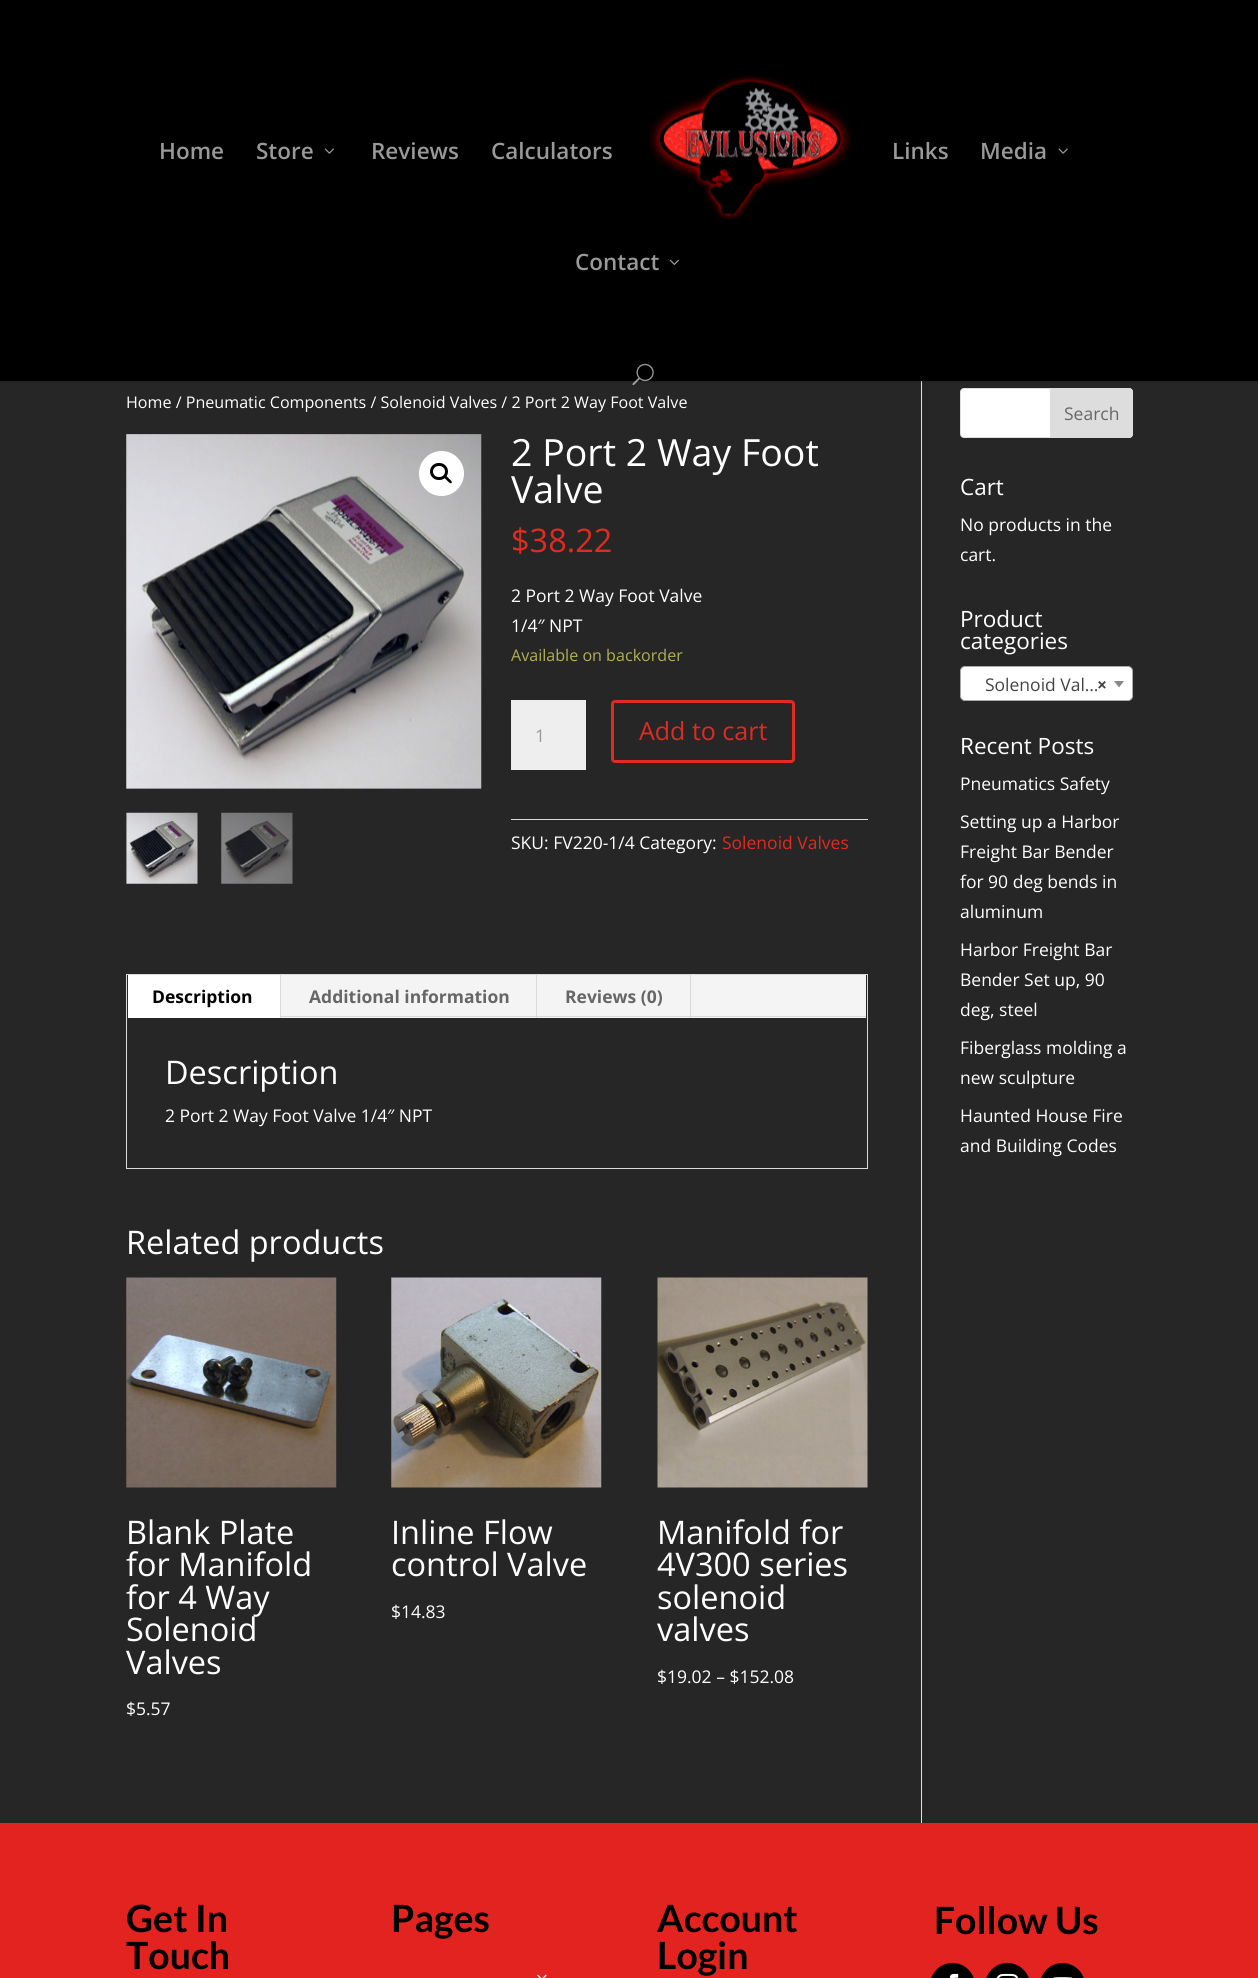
#include <cairo/cairo.h>
#include <math.h>
#include <stddef.h>


static void rounded_rect(cairo_t *cr, double x, double y, double w, double h, double r) {
  cairo_new_sub_path(cr);
  cairo_arc(cr, x + w - r, y + h - r, r, 0, M_PI / 2);
  cairo_arc(cr, x + r, y + h - r, r, M_PI / 2, M_PI);
  cairo_arc(cr, x + r, y + r, r, M_PI, 1.5 * M_PI);
  cairo_arc(cr, x + w - r, y + r, r, 1.5 * M_PI, 2 * M_PI);
  cairo_close_path(cr);
}

static void draw_image(cairo_t *cr, const char *path, double x, double y, double w, double h) {
  cairo_surface_t *image = cairo_image_surface_create_from_png(path);
  cairo_save(cr);
  cairo_set_source_surface(cr, image, x, y);
  cairo_rectangle(cr, x, y, w, h);
  cairo_fill(cr);
  cairo_restore(cr);
  cairo_surface_destroy(image);
}

static void draw(cairo_t *cr) {
  cairo_set_source_rgb(cr, 38 / 255.0, 38 / 255.0, 38 / 255.0);
  cairo_paint(cr);
  cairo_set_source_rgb(cr, 226 / 255.0, 226 / 255.0, 226 / 255.0);
  cairo_rectangle(cr, 921, 381, 1, 1442);
  cairo_fill(cr);
  cairo_set_source_rgba(cr, 0, 0, 0, 0.1);
  cairo_new_path(cr);
  cairo_move_to(cr, 0, 381);
  cairo_line_to(cr, 0, 383);
  cairo_line_to(cr, 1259, 383);
  cairo_line_to(cr, 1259, 1);
  cairo_line_to(cr, 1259, 381);
  cairo_close_path(cr);
  cairo_fill(cr);
  cairo_set_source_rgb(cr, 0, 0, 0);
  cairo_rectangle(cr, 0, 0, 1258, 381);
  cairo_fill(cr);
  draw_image(cr, "images/1.png", 324, 148, 10, 6);
  draw_image(cr, "images/2.png", 648, 75, 204, 145);
  draw_image(cr, "images/3.png", 1058, 148, 10, 6);
  draw_image(cr, "images/4.png", 669, 259, 10, 6);
  draw_image(cr, "images/5.png", 632, 363, 22, 23);
  draw_image(cr, "images/6.png", 126, 434, 356, 355);
  cairo_set_source_rgb(cr, 1, 1, 1);
  cairo_arc(cr, 441.5, 473.5, 22.5, 0, 2 * M_PI);
  cairo_fill(cr);
  rounded_rect(cr, 431.5, 464.5, 15, 14, 7);
  cairo_set_source_rgb(cr, 0, 0, 0);
  cairo_set_line_width(cr, 3);
  cairo_stroke(cr);
  cairo_new_path(cr);
  cairo_move_to(cr, 444.5, 476);
  cairo_curve_to(cr, 446, 474.5, 448, 478, 449, 478.5);
  cairo_curve_to(cr, 449.5, 479.5, 453, 481.5, 451.5, 483);
  cairo_curve_to(cr, 450, 484.5, 448, 481, 447, 480.5);
  cairo_curve_to(cr, 446.5, 479.5, 443, 477.5, 444.5, 476);
  cairo_close_path(cr);
  cairo_fill(cr);
  draw_image(cr, "images/7.png", 126, 812, 72, 72);
  draw_image(cr, "images/8.png", 221, 812, 72, 72);
  cairo_set_source_rgb(cr, 238 / 255.0, 238 / 255.0, 238 / 255.0);
  cairo_rectangle(cr, 511, 700, 75, 70);
  cairo_fill(cr);
  rounded_rect(cr, 612.5, 701.5, 181, 60, 2.5);
  cairo_set_source_rgb(cr, 224 / 255.0, 43 / 255.0, 32 / 255.0);
  cairo_stroke(cr);
  cairo_set_source_rgb(cr, 218 / 255.0, 218 / 255.0, 218 / 255.0);
  cairo_rectangle(cr, 511, 819, 357, 1);
  cairo_fill(cr);
  cairo_rectangle(cr, 126.5, 974.5, 741, 194);
  cairo_set_source_rgb(cr, 217 / 255.0, 217 / 255.0, 217 / 255.0);
  cairo_set_line_width(cr, 1);
  cairo_stroke(cr);
  cairo_set_source_rgb(cr, 244 / 255.0, 244 / 255.0, 244 / 255.0);
  cairo_rectangle(cr, 281, 975, 585, 43);
  cairo_fill(cr);
  cairo_set_source_rgb(cr, 1, 1, 1);
  cairo_rectangle(cr, 128, 975, 152, 43);
  cairo_fill(cr);
  cairo_set_source_rgb(cr, 217 / 255.0, 217 / 255.0, 217 / 255.0);
  cairo_rectangle(cr, 280, 975, 1, 43);
  cairo_fill(cr);
  cairo_rectangle(cr, 536, 975, 1, 43);
  cairo_fill(cr);
  cairo_rectangle(cr, 690, 975, 1, 43);
  cairo_fill(cr);
  cairo_rectangle(cr, 281, 1016, 585, 1);
  cairo_fill(cr);
  draw_image(cr, "images/9.png", 126, 1277, 211, 211);
  draw_image(cr, "images/10.png", 391, 1277, 211, 211);
  draw_image(cr, "images/11.png", 657, 1277, 211, 211);
  cairo_set_source_rgb(cr, 1, 1, 1);
  rounded_rect(cr, 960.5, 388.5, 172, 49, 3.5);
  cairo_fill_preserve(cr);
  cairo_set_source_rgb(cr, 221 / 255.0, 221 / 255.0, 221 / 255.0);
  cairo_stroke(cr);
  cairo_new_path(cr);
  cairo_move_to(cr, 1050.5, 388.5);
  cairo_line_to(cr, 1129, 388.5);
  cairo_curve_to(cr, 1131, 388.5, 1132.5, 390, 1132.5, 392);
  cairo_line_to(cr, 1132.5, 434);
  cairo_curve_to(cr, 1132.5, 436, 1131, 437.5, 1129, 437.5);
  cairo_line_to(cr, 1050.5, 437.5);
  cairo_close_path(cr);
  cairo_fill_preserve(cr);
  cairo_stroke(cr);
  cairo_set_source_rgb(cr, 1, 1, 1);
  rounded_rect(cr, 960.5, 666.5, 172, 34, 4.5);
  cairo_fill_preserve(cr);
  cairo_set_source_rgb(cr, 170 / 255.0, 170 / 255.0, 170 / 255.0);
  cairo_stroke(cr);
  cairo_set_source_rgb(cr, 136 / 255.0, 136 / 255.0, 136 / 255.0);
  cairo_new_path(cr);
  cairo_move_to(cr, 1114, 681);
  cairo_line_to(cr, 1124, 681);
  cairo_line_to(cr, 1119, 687.5);
  cairo_close_path(cr);
  cairo_fill(cr);
  cairo_set_source_rgb(cr, 226 / 255.0, 35 / 255.0, 31 / 255.0);
  cairo_rectangle(cr, 0, 1823, 1258, 155);
  cairo_fill(cr);
  draw_image(cr, "images/12.png", 537, 1974, 10, 4);
  cairo_set_source_rgb(cr, 0, 0, 0);
  rounded_rect(cr, 930, 1963, 45, 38, 22.5);
  cairo_fill(cr);
  draw_image(cr, "images/13.png", 949, 1973, 10, 5);
  rounded_rect(cr, 985, 1963, 45, 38, 22.5);
  cairo_fill(cr);
  draw_image(cr, "images/14.png", 996, 1973, 23, 5);
  rounded_rect(cr, 1040, 1963, 45, 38, 22.5);
  cairo_fill(cr);
  draw_image(cr, "images/15.png", 1053, 1977, 19, 1);
  cairo_select_font_face(cr, "Open Sans SemiBold", CAIRO_FONT_SLANT_NORMAL, CAIRO_FONT_WEIGHT_NORMAL);
  cairo_set_font_size(cr, 22.5);
  cairo_set_source_rgb(cr, 153 / 255.0, 153 / 255.0, 153 / 255.0);
  cairo_move_to(cr, 159, 159);
  cairo_show_text(cr, "Home");
  cairo_move_to(cr, 256, 159);
  cairo_show_text(cr, "Store");
  cairo_move_to(cr, 371, 159);
  cairo_show_text(cr, "Reviews");
  cairo_move_to(cr, 491, 159);
  cairo_show_text(cr, "Calculators");
  cairo_move_to(cr, 892, 159);
  cairo_show_text(cr, "Links");
  cairo_move_to(cr, 980, 159);
  cairo_show_text(cr, "Media");
  cairo_move_to(cr, 575, 270);
  cairo_show_text(cr, "Contact");
  cairo_select_font_face(cr, "Open Sans", CAIRO_FONT_SLANT_NORMAL, CAIRO_FONT_WEIGHT_NORMAL);
  cairo_set_font_size(cr, 16.1);
  cairo_set_source_rgb(cr, 1, 1, 1);
  cairo_move_to(cr, 126, 408);
  cairo_show_text(cr, "Home / Pneumatic Components / Solenoid Valves / 2 Port 2 Way Foot Valve");
  cairo_set_font_size(cr, 37.5);
  cairo_move_to(cr, 511, 466);
  cairo_show_text(cr, "2 Port 2 Way Foot");
  cairo_move_to(cr, 511, 503);
  cairo_show_text(cr, "Valve");
  cairo_set_font_size(cr, 32.5);
  cairo_set_source_rgb(cr, 224 / 255.0, 43 / 255.0, 32 / 255.0);
  cairo_move_to(cr, 511, 552);
  cairo_show_text(cr, "$38.22");
  cairo_set_font_size(cr, 17.5);
  cairo_set_source_rgb(cr, 1, 1, 1);
  cairo_move_to(cr, 511, 602);
  cairo_show_text(cr, "2 Port 2 Way Foot Valve");
  cairo_move_to(cr, 511, 632);
  cairo_show_text(cr, "1/4″ NPT");
  cairo_set_font_size(cr, 16.1);
  cairo_set_source_rgb(cr, 179 / 255.0, 175 / 255.0, 84 / 255.0);
  cairo_move_to(cr, 511, 661);
  cairo_show_text(cr, "Available on backorder");
  cairo_set_font_size(cr, 17.5);
  cairo_set_source_rgb(cr, 153 / 255.0, 153 / 255.0, 153 / 255.0);
  cairo_move_to(cr, 535, 742);
  cairo_show_text(cr, "1");
  cairo_set_font_size(cr, 25);
  cairo_set_source_rgb(cr, 224 / 255.0, 43 / 255.0, 32 / 255.0);
  cairo_move_to(cr, 639, 740);
  cairo_show_text(cr, "Add to cart");
  cairo_set_font_size(cr, 17.5);
  cairo_set_source_rgb(cr, 1, 1, 1);
  cairo_move_to(cr, 511, 849);
  cairo_show_text(cr, "SKU: FV220-1/4 Category:");
  cairo_set_source_rgb(cr, 224 / 255.0, 43 / 255.0, 32 / 255.0);
  cairo_move_to(cr, 722, 849);
  cairo_show_text(cr, "Solenoid Valves");
  cairo_select_font_face(cr, "Open Sans", CAIRO_FONT_SLANT_NORMAL, CAIRO_FONT_WEIGHT_BOLD);
  cairo_set_source_rgb(cr, 0, 0, 0);
  cairo_move_to(cr, 152, 1003);
  cairo_show_text(cr, "Description");
  cairo_set_source_rgb(cr, 102 / 255.0, 102 / 255.0, 102 / 255.0);
  cairo_move_to(cr, 309, 1003);
  cairo_show_text(cr, "Additional information");
  cairo_move_to(cr, 565, 1003);
  cairo_show_text(cr, "Reviews (0)");
  cairo_select_font_face(cr, "Open Sans", CAIRO_FONT_SLANT_NORMAL, CAIRO_FONT_WEIGHT_NORMAL);
  cairo_set_font_size(cr, 32.5);
  cairo_set_source_rgb(cr, 1, 1, 1);
  cairo_move_to(cr, 165, 1084);
  cairo_show_text(cr, "Description");
  cairo_set_font_size(cr, 17.5);
  cairo_move_to(cr, 165, 1122);
  cairo_show_text(cr, "2 Port 2 Way Foot Valve 1/4″ NPT");
  cairo_set_font_size(cr, 32.5);
  cairo_move_to(cr, 126, 1254);
  cairo_show_text(cr, "Related products");
  cairo_move_to(cr, 126, 1544);
  cairo_show_text(cr, "Blank Plate");
  cairo_move_to(cr, 126, 1576);
  cairo_show_text(cr, "for Manifold");
  cairo_move_to(cr, 126, 1609);
  cairo_show_text(cr, "for 4 Way");
  cairo_move_to(cr, 126, 1641);
  cairo_show_text(cr, "Solenoid");
  cairo_move_to(cr, 126, 1674);
  cairo_show_text(cr, "Valves");
  cairo_set_font_size(cr, 17.5);
  cairo_move_to(cr, 126, 1715);
  cairo_show_text(cr, "$5.57");
  cairo_set_font_size(cr, 32.5);
  cairo_move_to(cr, 391, 1544);
  cairo_show_text(cr, "Inline Flow");
  cairo_move_to(cr, 391, 1576);
  cairo_show_text(cr, "control Valve");
  cairo_set_font_size(cr, 17.5);
  cairo_move_to(cr, 391, 1618);
  cairo_show_text(cr, "$14.83");
  cairo_set_font_size(cr, 32.5);
  cairo_move_to(cr, 657, 1544);
  cairo_show_text(cr, "Manifold for");
  cairo_move_to(cr, 657, 1576);
  cairo_show_text(cr, "4V300 series");
  cairo_move_to(cr, 657, 1609);
  cairo_show_text(cr, "solenoid");
  cairo_move_to(cr, 657, 1641);
  cairo_show_text(cr, "valves");
  cairo_set_font_size(cr, 17.5);
  cairo_move_to(cr, 657, 1683);
  cairo_show_text(cr, "$19.02 – $152.08");
  cairo_set_source_rgb(cr, 102 / 255.0, 102 / 255.0, 102 / 255.0);
  cairo_move_to(cr, 1064, 420);
  cairo_show_text(cr, "Search");
  cairo_set_font_size(cr, 22.5);
  cairo_set_source_rgb(cr, 1, 1, 1);
  cairo_move_to(cr, 960, 495);
  cairo_show_text(cr, "Cart");
  cairo_set_font_size(cr, 17.5);
  cairo_move_to(cr, 960, 531);
  cairo_show_text(cr, "No products in the");
  cairo_move_to(cr, 960, 561);
  cairo_show_text(cr, "cart.");
  cairo_set_font_size(cr, 22.5);
  cairo_move_to(cr, 960, 627);
  cairo_show_text(cr, "Product");
  cairo_move_to(cr, 960, 649);
  cairo_show_text(cr, "categories");
  cairo_set_font_size(cr, 17.5);
  cairo_set_source_rgb(cr, 68 / 255.0, 68 / 255.0, 68 / 255.0);
  cairo_move_to(cr, 985, 691);
  cairo_show_text(cr, "Solenoid Val…");
  cairo_select_font_face(cr, "Open Sans", CAIRO_FONT_SLANT_NORMAL, CAIRO_FONT_WEIGHT_BOLD);
  cairo_move_to(cr, 1097, 691);
  cairo_show_text(cr, "×");
  cairo_select_font_face(cr, "Open Sans", CAIRO_FONT_SLANT_NORMAL, CAIRO_FONT_WEIGHT_NORMAL);
  cairo_set_font_size(cr, 22.5);
  cairo_set_source_rgb(cr, 1, 1, 1);
  cairo_move_to(cr, 960, 754);
  cairo_show_text(cr, "Recent Posts");
  cairo_set_font_size(cr, 17.5);
  cairo_move_to(cr, 960, 790);
  cairo_show_text(cr, "Pneumatics Safety");
  cairo_move_to(cr, 960, 828);
  cairo_show_text(cr, "Setting up a Harbor");
  cairo_move_to(cr, 960, 858);
  cairo_show_text(cr, "Freight Bar Bender");
  cairo_move_to(cr, 960, 888);
  cairo_show_text(cr, "for 90 deg bends in");
  cairo_move_to(cr, 960, 918);
  cairo_show_text(cr, "aluminum");
  cairo_move_to(cr, 960, 956);
  cairo_show_text(cr, "Harbor Freight Bar");
  cairo_move_to(cr, 960, 986);
  cairo_show_text(cr, "Bender Set up, 90");
  cairo_move_to(cr, 960, 1016);
  cairo_show_text(cr, "deg, steel");
  cairo_move_to(cr, 960, 1054);
  cairo_show_text(cr, "Fiberglass molding a");
  cairo_move_to(cr, 960, 1084);
  cairo_show_text(cr, "new sculpture");
  cairo_move_to(cr, 960, 1122);
  cairo_show_text(cr, "Haunted House Fire");
  cairo_move_to(cr, 960, 1152);
  cairo_show_text(cr, "and Building Codes");
  cairo_select_font_face(cr, "Lato", CAIRO_FONT_SLANT_NORMAL, CAIRO_FONT_WEIGHT_BOLD);
  cairo_set_font_size(cr, 37.5);
  cairo_set_source_rgb(cr, 0, 0, 0);
  cairo_move_to(cr, 126, 1932);
  cairo_show_text(cr, "Get In");
  cairo_move_to(cr, 126, 1969);
  cairo_show_text(cr, "Touch");
  cairo_move_to(cr, 391, 1932);
  cairo_show_text(cr, "Pages");
  cairo_move_to(cr, 657, 1932);
  cairo_show_text(cr, "Account");
  cairo_move_to(cr, 657, 1969);
  cairo_show_text(cr, "Login");
  cairo_move_to(cr, 934, 1934);
  cairo_show_text(cr, "Follow Us");
}

int main(void) {
  cairo_surface_t *surface = cairo_image_surface_create(CAIRO_FORMAT_RGB24, 1258, 1978);
  cairo_t *cr = cairo_create(surface);
  cairo_font_options_t *options = cairo_font_options_create();
  cairo_font_options_set_hint_metrics(options, CAIRO_HINT_METRICS_OFF);
  cairo_font_options_set_hint_style(options, CAIRO_HINT_STYLE_NONE);
  cairo_set_font_options(cr, options);
  cairo_set_miter_limit(cr, 4);
  draw(cr);
  cairo_surface_write_to_png(surface, "out.png");
  cairo_font_options_destroy(options);
  cairo_destroy(cr);
  cairo_surface_destroy(surface);
  return 0;
}
